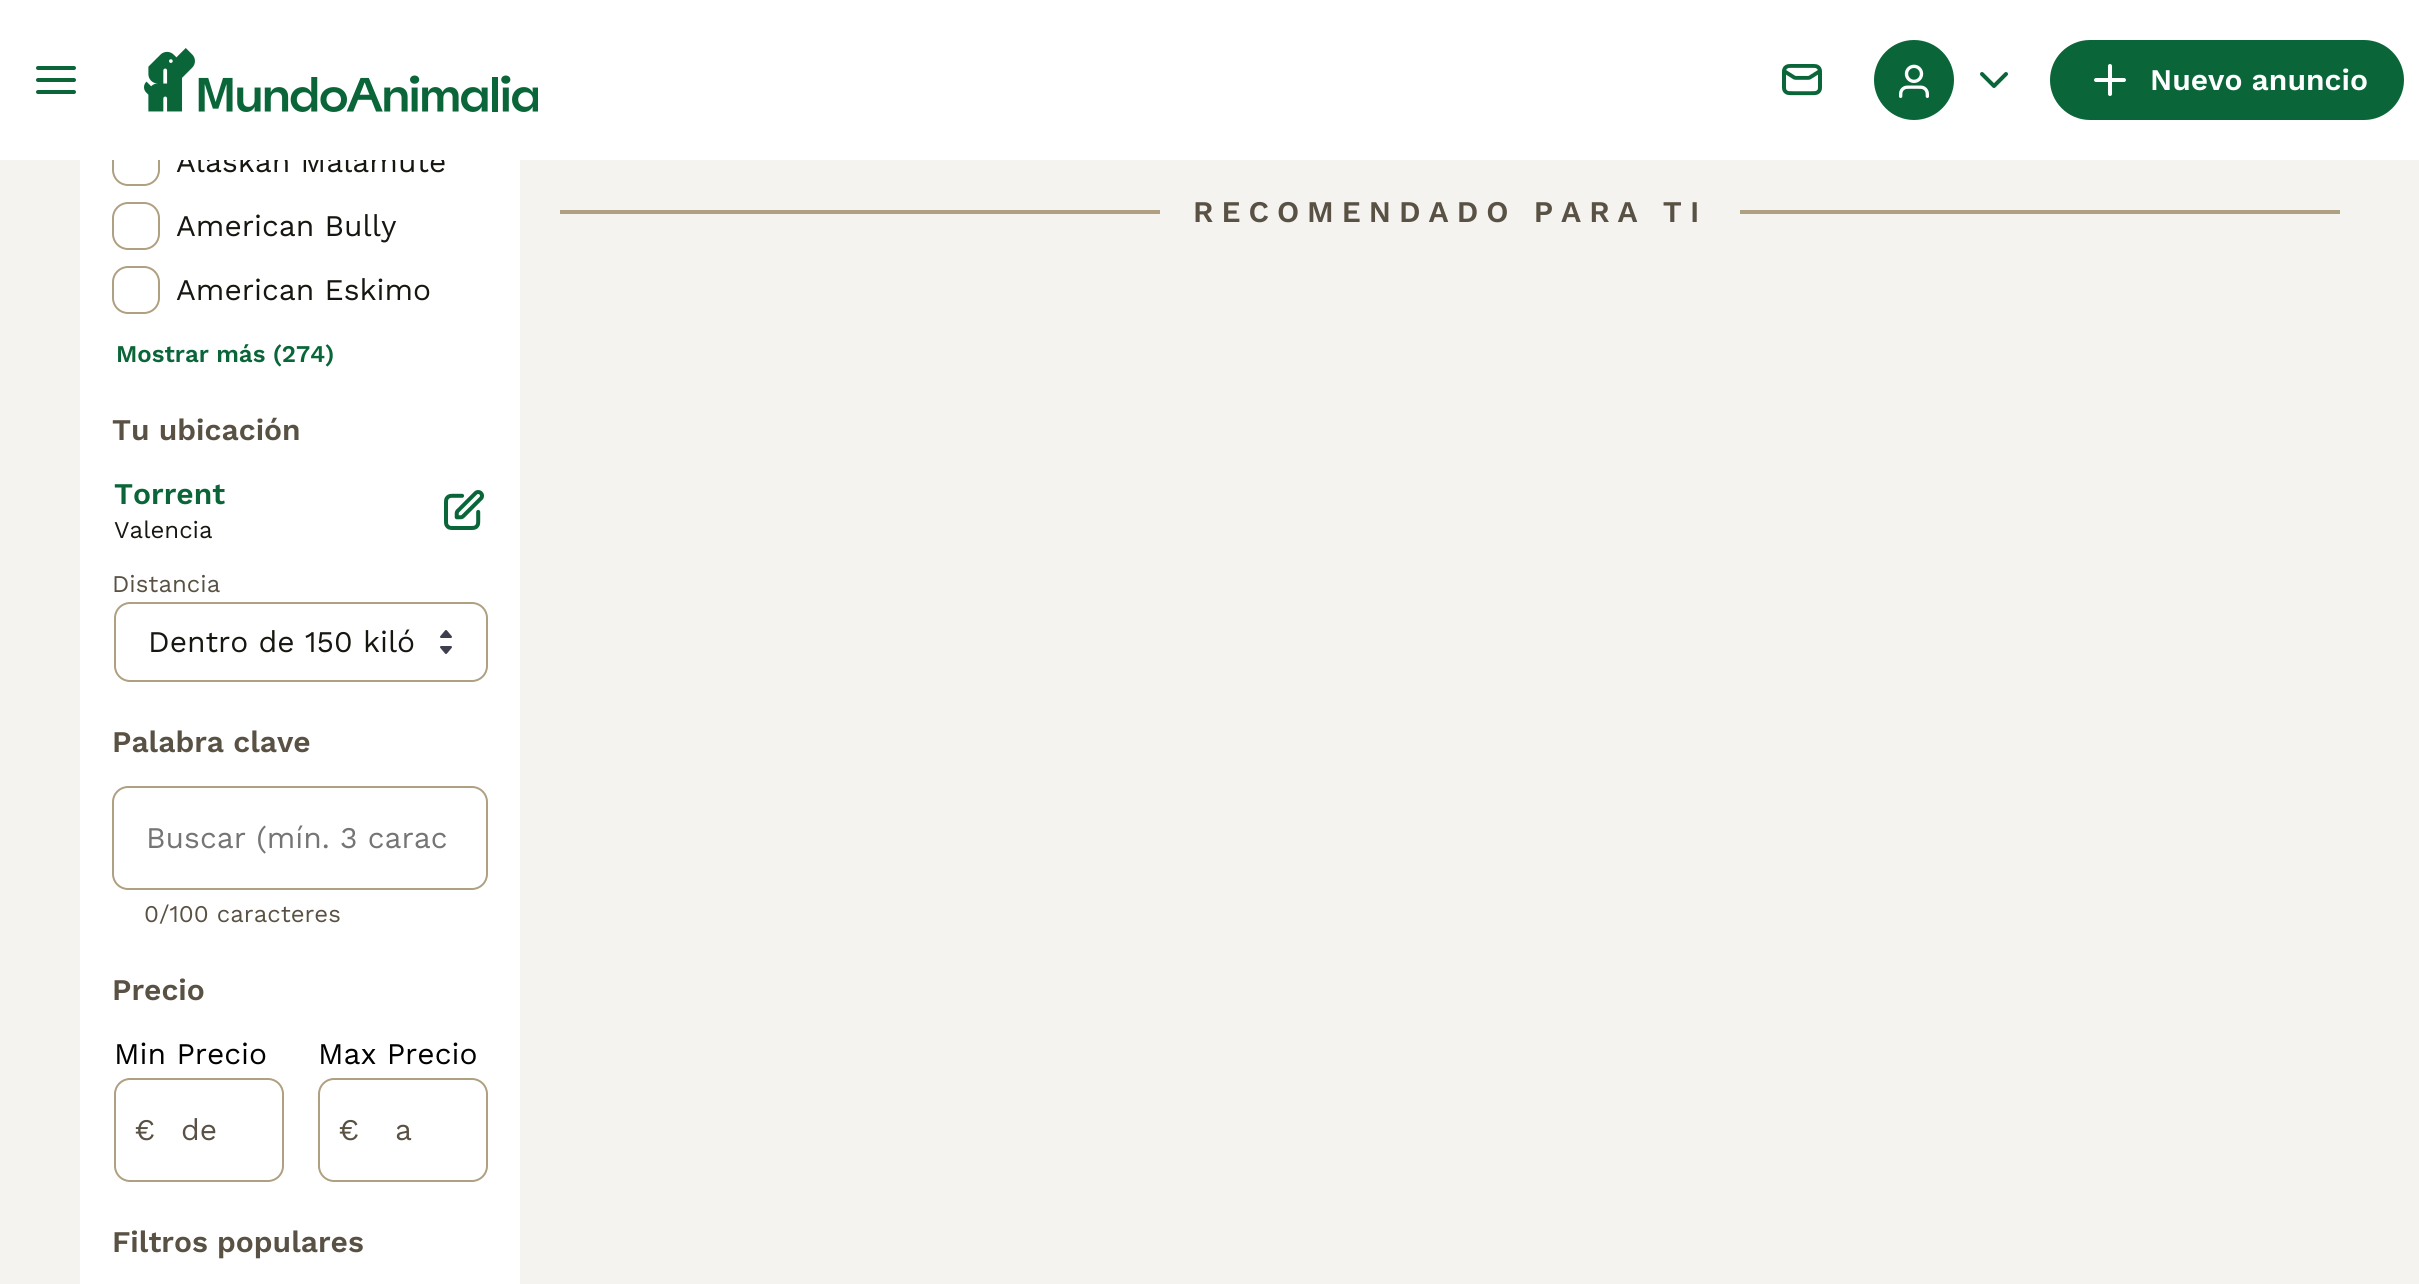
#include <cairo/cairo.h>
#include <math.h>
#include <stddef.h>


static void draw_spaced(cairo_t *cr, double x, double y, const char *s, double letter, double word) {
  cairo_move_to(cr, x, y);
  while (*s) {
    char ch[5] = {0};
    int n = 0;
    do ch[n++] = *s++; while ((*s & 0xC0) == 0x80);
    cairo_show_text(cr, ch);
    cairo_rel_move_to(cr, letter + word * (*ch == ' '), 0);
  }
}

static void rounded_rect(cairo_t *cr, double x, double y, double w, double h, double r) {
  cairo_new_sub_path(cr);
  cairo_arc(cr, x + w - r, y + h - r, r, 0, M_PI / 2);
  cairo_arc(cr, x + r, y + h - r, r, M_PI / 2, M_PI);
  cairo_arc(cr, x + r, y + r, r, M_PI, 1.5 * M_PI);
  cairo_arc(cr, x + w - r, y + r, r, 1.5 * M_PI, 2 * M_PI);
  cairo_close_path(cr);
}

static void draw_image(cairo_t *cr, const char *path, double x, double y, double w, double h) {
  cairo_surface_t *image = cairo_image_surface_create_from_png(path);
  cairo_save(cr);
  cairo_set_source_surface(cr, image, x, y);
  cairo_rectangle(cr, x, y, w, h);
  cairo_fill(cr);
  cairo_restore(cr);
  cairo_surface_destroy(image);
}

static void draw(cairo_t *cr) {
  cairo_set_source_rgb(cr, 245 / 255.0, 243 / 255.0, 240 / 255.0);
  cairo_paint(cr);
  cairo_set_source_rgb(cr, 1, 1, 1);
  cairo_rectangle(cr, 80, 160, 440, 1124);
  cairo_fill(cr);
  rounded_rect(cr, 113, 139, 46, 46, 15);
  cairo_set_source_rgb(cr, 176 / 255.0, 160 / 255.0, 130 / 255.0);
  cairo_stroke(cr);
  rounded_rect(cr, 113, 203, 46, 46, 15);
  cairo_stroke(cr);
  rounded_rect(cr, 113, 267, 46, 46, 15);
  cairo_stroke(cr);
  draw_image(cr, "images/7.png", 444, 490, 40, 40);
  draw_image(cr, "images/8.png", 440, 630, 12, 24);
  rounded_rect(cr, 115, 603, 372, 78, 15);
  cairo_stroke(cr);
  rounded_rect(cr, 113, 787, 374, 102, 15);
  cairo_stroke(cr);
  rounded_rect(cr, 115, 1079, 168, 102, 15);
  cairo_stroke(cr);
  rounded_rect(cr, 319, 1079, 168, 102, 15);
  cairo_stroke(cr);
  cairo_rectangle(cr, 560, 210, 1780, 4);
  cairo_fill(cr);
  cairo_set_source_rgb(cr, 245 / 255.0, 243 / 255.0, 240 / 255.0);
  cairo_rectangle(cr, 1160, 210, 580, 4);
  cairo_fill(cr);
  cairo_select_font_face(cr, "Work Sans", CAIRO_FONT_SLANT_NORMAL, CAIRO_FONT_WEIGHT_NORMAL);
  cairo_set_font_size(cr, 30);
  cairo_set_source_rgb(cr, 23 / 255.0, 23 / 255.0, 17 / 255.0);
  cairo_move_to(cr, 176, 172);
  cairo_show_text(cr, "Alaskan Malamute");
  cairo_set_source_rgb(cr, 1, 1, 1);
  cairo_rectangle(cr, 0, 0, 2419, 160);
  cairo_fill(cr);
  cairo_set_source_rgb(cr, 10 / 255.0, 102 / 255.0, 56 / 255.0);
  cairo_arc(cr, 1914, 80, 40, 0, 2 * M_PI);
  cairo_fill(cr);
  draw_image(cr, "images/4.png", 1899, 64, 30, 34);
  draw_image(cr, "images/5.png", 1980, 72, 28, 16);
  draw_image(cr, "images/3.png", 1782, 64, 40, 32);
  rounded_rect(cr, 2050, 40, 354, 80, 40);
  cairo_fill(cr);
  cairo_select_font_face(cr, "Work Sans SemiBold", CAIRO_FONT_SLANT_NORMAL, CAIRO_FONT_WEIGHT_NORMAL);
  cairo_set_source_rgb(cr, 1, 1, 1);
  cairo_move_to(cr, 2150, 90);
  cairo_show_text(cr, "Nuevo anuncio");
  draw_image(cr, "images/6.png", 2094, 64, 32, 32);
  draw_image(cr, "images/2.png", 144, 48, 394, 64);
  draw_image(cr, "images/1.png", 36, 66, 40, 28);
  cairo_select_font_face(cr, "Work Sans", CAIRO_FONT_SLANT_NORMAL, CAIRO_FONT_WEIGHT_NORMAL);
  cairo_set_source_rgb(cr, 23 / 255.0, 23 / 255.0, 17 / 255.0);
  cairo_move_to(cr, 176, 236);
  cairo_show_text(cr, "American Bully");
  cairo_move_to(cr, 176, 300);
  cairo_show_text(cr, "American Eskimo");
  cairo_select_font_face(cr, "Work Sans SemiBold", CAIRO_FONT_SLANT_NORMAL, CAIRO_FONT_WEIGHT_NORMAL);
  cairo_set_font_size(cr, 24);
  cairo_set_source_rgb(cr, 10 / 255.0, 102 / 255.0, 56 / 255.0);
  cairo_move_to(cr, 116, 362);
  cairo_show_text(cr, "Mostrar más (274)");
  cairo_set_font_size(cr, 30);
  cairo_set_source_rgb(cr, 89 / 255.0, 81 / 255.0, 67 / 255.0);
  cairo_move_to(cr, 112, 440);
  cairo_show_text(cr, "Tu ubicación");
  cairo_set_source_rgb(cr, 10 / 255.0, 102 / 255.0, 56 / 255.0);
  cairo_move_to(cr, 114, 504);
  cairo_show_text(cr, "Torrent");
  cairo_select_font_face(cr, "Work Sans", CAIRO_FONT_SLANT_NORMAL, CAIRO_FONT_WEIGHT_NORMAL);
  cairo_set_font_size(cr, 24);
  cairo_set_source_rgb(cr, 23 / 255.0, 23 / 255.0, 17 / 255.0);
  cairo_move_to(cr, 114, 538);
  cairo_show_text(cr, "Valencia");
  cairo_set_source_rgb(cr, 89 / 255.0, 81 / 255.0, 67 / 255.0);
  cairo_move_to(cr, 112, 592);
  cairo_show_text(cr, "Distancia");
  cairo_set_font_size(cr, 30);
  cairo_set_source_rgb(cr, 23 / 255.0, 23 / 255.0, 17 / 255.0);
  cairo_move_to(cr, 148, 652);
  cairo_show_text(cr, "Dentro de 150 kiló");
  cairo_select_font_face(cr, "Work Sans SemiBold", CAIRO_FONT_SLANT_NORMAL, CAIRO_FONT_WEIGHT_NORMAL);
  cairo_set_source_rgb(cr, 89 / 255.0, 81 / 255.0, 67 / 255.0);
  cairo_move_to(cr, 112, 752);
  cairo_show_text(cr, "Palabra clave");
  cairo_select_font_face(cr, "Work Sans", CAIRO_FONT_SLANT_NORMAL, CAIRO_FONT_WEIGHT_NORMAL);
  cairo_set_source_rgb(cr, 117 / 255.0, 117 / 255.0, 117 / 255.0);
  cairo_move_to(cr, 146, 848);
  cairo_show_text(cr, "Buscar (mín. 3 carac");
  cairo_set_font_size(cr, 24);
  cairo_set_source_rgb(cr, 89 / 255.0, 81 / 255.0, 67 / 255.0);
  cairo_move_to(cr, 144, 922);
  cairo_show_text(cr, "0/100 caracteres");
  cairo_select_font_face(cr, "Work Sans SemiBold", CAIRO_FONT_SLANT_NORMAL, CAIRO_FONT_WEIGHT_NORMAL);
  cairo_set_font_size(cr, 30);
  cairo_move_to(cr, 112, 1000);
  cairo_show_text(cr, "Precio");
  cairo_select_font_face(cr, "Work Sans", CAIRO_FONT_SLANT_NORMAL, CAIRO_FONT_WEIGHT_NORMAL);
  cairo_set_source_rgb(cr, 0, 0, 0);
  cairo_move_to(cr, 114, 1064);
  cairo_show_text(cr, "Min Precio");
  cairo_set_source_rgb(cr, 89 / 255.0, 81 / 255.0, 67 / 255.0);
  cairo_move_to(cr, 134, 1140);
  cairo_show_text(cr, "€");
  cairo_move_to(cr, 181, 1140);
  cairo_show_text(cr, "de");
  cairo_set_source_rgb(cr, 0, 0, 0);
  cairo_move_to(cr, 318, 1064);
  cairo_show_text(cr, "Max Precio");
  cairo_set_source_rgb(cr, 89 / 255.0, 81 / 255.0, 67 / 255.0);
  cairo_move_to(cr, 338, 1140);
  cairo_show_text(cr, "€");
  cairo_move_to(cr, 395, 1140);
  cairo_show_text(cr, "a");
  cairo_select_font_face(cr, "Work Sans SemiBold", CAIRO_FONT_SLANT_NORMAL, CAIRO_FONT_WEIGHT_NORMAL);
  cairo_move_to(cr, 112, 1252);
  cairo_show_text(cr, "Filtros populares");
  draw_spaced(cr, 1193, 222, "RECOMENDADO PARA TI", 8, 0);
}

int main(void) {
  cairo_surface_t *surface = cairo_image_surface_create(CAIRO_FORMAT_RGB24, 2419, 1284);
  cairo_t *cr = cairo_create(surface);
  cairo_font_options_t *options = cairo_font_options_create();
  cairo_font_options_set_hint_metrics(options, CAIRO_HINT_METRICS_OFF);
  cairo_font_options_set_hint_style(options, CAIRO_HINT_STYLE_NONE);
  cairo_set_font_options(cr, options);
  cairo_set_miter_limit(cr, 4);
  draw(cr);
  cairo_surface_write_to_png(surface, "out.png");
  cairo_font_options_destroy(options);
  cairo_destroy(cr);
  cairo_surface_destroy(surface);
  return 0;
}
